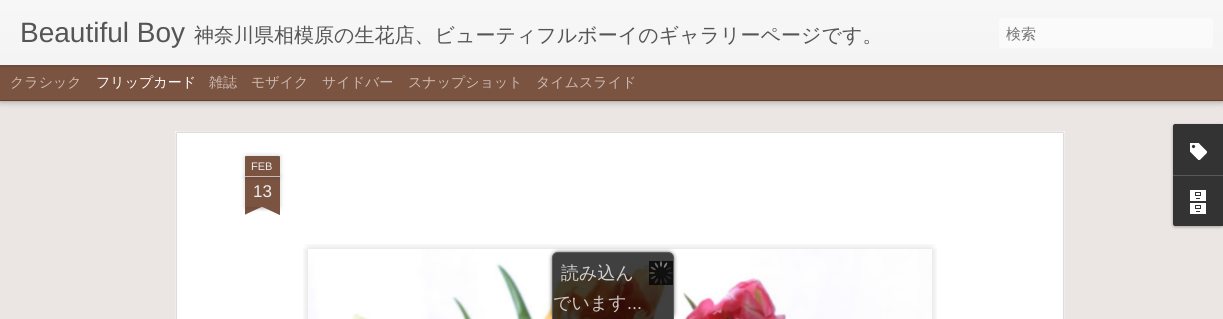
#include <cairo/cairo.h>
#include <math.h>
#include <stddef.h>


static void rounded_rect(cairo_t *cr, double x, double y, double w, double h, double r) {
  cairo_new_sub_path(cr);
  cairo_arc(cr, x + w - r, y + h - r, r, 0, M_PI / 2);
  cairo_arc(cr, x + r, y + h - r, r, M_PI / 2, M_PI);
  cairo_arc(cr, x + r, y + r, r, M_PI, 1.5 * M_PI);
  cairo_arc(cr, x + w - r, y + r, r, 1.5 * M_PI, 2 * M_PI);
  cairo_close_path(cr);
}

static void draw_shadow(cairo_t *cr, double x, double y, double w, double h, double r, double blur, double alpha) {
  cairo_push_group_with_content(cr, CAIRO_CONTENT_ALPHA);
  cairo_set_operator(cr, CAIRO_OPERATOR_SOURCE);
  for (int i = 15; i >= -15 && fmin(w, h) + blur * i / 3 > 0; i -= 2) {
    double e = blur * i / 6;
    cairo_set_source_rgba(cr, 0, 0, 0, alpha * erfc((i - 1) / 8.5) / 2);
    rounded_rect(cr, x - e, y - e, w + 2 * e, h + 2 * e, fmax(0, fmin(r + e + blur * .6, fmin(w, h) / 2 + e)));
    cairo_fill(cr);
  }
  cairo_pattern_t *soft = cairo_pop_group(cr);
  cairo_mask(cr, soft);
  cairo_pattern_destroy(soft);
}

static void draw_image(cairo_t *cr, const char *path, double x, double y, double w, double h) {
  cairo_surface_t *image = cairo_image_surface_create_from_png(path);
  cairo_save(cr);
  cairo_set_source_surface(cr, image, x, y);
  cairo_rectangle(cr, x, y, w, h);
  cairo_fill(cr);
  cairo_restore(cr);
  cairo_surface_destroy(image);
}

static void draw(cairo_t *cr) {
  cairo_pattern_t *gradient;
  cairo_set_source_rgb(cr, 123 / 255.0, 83 / 255.0, 65 / 255.0);
  cairo_paint(cr);
  cairo_set_source_rgb(cr, 235 / 255.0, 229 / 255.0, 227 / 255.0);
  cairo_rectangle(cr, 0, 101, 1223, 218);
  cairo_fill(cr);
  cairo_set_source_rgb(cr, 0, 0, 0);
  draw_shadow(cr, 0, 65, 1223, 35, 0, 4, 0.5);
  cairo_set_source_rgb(cr, 123 / 255.0, 83 / 255.0, 65 / 255.0);
  cairo_rectangle(cr, 0, 65, 1223, 35);
  cairo_fill(cr);
  cairo_set_source_rgb(cr, 0, 0, 0);
  draw_shadow(cr, 0, 0, 1223, 65, 0, 2.5, 0.3);
  gradient = cairo_pattern_create_linear(0, 0, 0, 65);
  cairo_pattern_add_color_stop_rgba(gradient, 0, 247 / 255.0, 247 / 255.0, 247 / 255.0, 1);
  cairo_pattern_add_color_stop_rgba(gradient, 1, 244 / 255.0, 244 / 255.0, 244 / 255.0, 1);
  cairo_set_source(cr, gradient);
  cairo_pattern_destroy(gradient);
  cairo_rectangle(cr, 0, 0, 1223, 65);
  cairo_fill(cr);
  cairo_set_source_rgb(cr, 250 / 255.0, 250 / 255.0, 250 / 255.0);
  rounded_rect(cr, 999, 18, 214, 30, 3);
  cairo_fill(cr);
  cairo_set_source_rgb(cr, 1, 1, 1);
  cairo_rectangle(cr, 175, 131, 890, 188);
  cairo_fill(cr);
  draw_image(cr, "images/1.png", 175, 131, 890, 188);
  cairo_set_source_rgb(cr, 0, 0, 0);
  draw_shadow(cr, 245, 177, 35, 30, 0, 2.5, 0.2);
  cairo_set_source_rgb(cr, 123 / 255.0, 83 / 255.0, 65 / 255.0);
  cairo_rectangle(cr, 245, 177, 35, 30);
  cairo_fill(cr);
  cairo_set_source_rgb(cr, 0, 0, 0);
  draw_shadow(cr, 245, 156, 35, 21, 1, 2.5, 0.2);
  cairo_set_source_rgb(cr, 123 / 255.0, 83 / 255.0, 65 / 255.0);
  cairo_new_path(cr);
  cairo_move_to(cr, 246, 156);
  cairo_line_to(cr, 279, 156);
  cairo_curve_to(cr, 279.5, 156, 280, 156.5, 280, 157);
  cairo_line_to(cr, 280, 177);
  cairo_line_to(cr, 245, 177);
  cairo_line_to(cr, 245, 157);
  cairo_curve_to(cr, 245, 156.5, 245.5, 156, 246, 156);
  cairo_close_path(cr);
  cairo_fill(cr);
  cairo_set_source_rgb(cr, 202 / 255.0, 186 / 255.0, 179 / 255.0);
  cairo_rectangle(cr, 245, 176, 35, 1);
  cairo_fill(cr);
  cairo_save(cr);
  cairo_rectangle(cr, 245, 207, 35, 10);
  cairo_clip(cr);
  cairo_set_source_rgb(cr, 0, 0, 0);
  draw_shadow(cr, 236, 197, 50, 10, 0, 2.5, 0.2);
  cairo_restore(cr);
  cairo_save(cr);
  cairo_rectangle(cr, 245, 207, 35, 10);
  cairo_clip(cr);
  cairo_set_source_rgb(cr, 123 / 255.0, 83 / 255.0, 65 / 255.0);
  cairo_new_path(cr);
  cairo_move_to(cr, 236, 208);
  cairo_line_to(cr, 281, 187);
  cairo_line_to(cr, 285, 196);
  cairo_line_to(cr, 240, 217);
  cairo_close_path(cr);
  cairo_fill(cr);
  cairo_restore(cr);
  cairo_save(cr);
  cairo_rectangle(cr, 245, 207, 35, 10);
  cairo_clip(cr);
  cairo_set_source_rgb(cr, 0, 0, 0);
  draw_shadow(cr, 239, 197, 50, 10, 0, 2.5, 0.2);
  cairo_restore(cr);
  cairo_save(cr);
  cairo_rectangle(cr, 245, 207, 35, 10);
  cairo_clip(cr);
  cairo_set_source_rgb(cr, 123 / 255.0, 83 / 255.0, 65 / 255.0);
  cairo_new_path(cr);
  cairo_move_to(cr, 243, 187);
  cairo_line_to(cr, 288, 208);
  cairo_line_to(cr, 284, 217);
  cairo_line_to(cr, 239, 196);
  cairo_close_path(cr);
  cairo_fill(cr);
  cairo_restore(cr);
  draw_image(cr, "images/2.png", 303, 244, 634, 75);
  draw_image(cr, "images/3.png", 455, 265, 332, 54);
  cairo_set_source_rgb(cr, 0, 0, 0);
  draw_shadow(cr, 1173, 125, 50, 102, 2, 1.5, 0.3);
  cairo_set_source_rgb(cr, 51 / 255.0, 51 / 255.0, 51 / 255.0);
  cairo_new_path(cr);
  cairo_move_to(cr, 1175, 124);
  cairo_line_to(cr, 1223, 124);
  cairo_line_to(cr, 1223, 175);
  cairo_line_to(cr, 1173, 175);
  cairo_line_to(cr, 1173, 126);
  cairo_curve_to(cr, 1173, 125, 1174, 124, 1175, 124);
  cairo_close_path(cr);
  cairo_fill(cr);
  draw_image(cr, "images/4.png", 1190, 143, 17, 17);
  cairo_new_path(cr);
  cairo_move_to(cr, 1173, 175);
  cairo_line_to(cr, 1223, 175);
  cairo_line_to(cr, 1223, 226);
  cairo_line_to(cr, 1175, 226);
  cairo_curve_to(cr, 1174, 226, 1173, 225, 1173, 224);
  cairo_close_path(cr);
  cairo_fill(cr);
  cairo_set_source_rgb(cr, 88 / 255.0, 88 / 255.0, 88 / 255.0);
  cairo_rectangle(cr, 1173, 175, 50, 1);
  cairo_fill(cr);
  draw_image(cr, "images/5.png", 1190, 190, 16, 24);
  cairo_save(cr);
  cairo_set_fill_rule(cr, CAIRO_FILL_RULE_EVEN_ODD);
  cairo_new_path(cr);
  cairo_move_to(cr, 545, 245);
  cairo_line_to(cr, 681, 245);
  cairo_line_to(cr, 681, 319);
  cairo_line_to(cr, 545, 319);
  cairo_close_path(cr);
  cairo_move_to(cr, 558, 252);
  cairo_line_to(cr, 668, 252);
  cairo_curve_to(cr, 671.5, 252, 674, 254.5, 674, 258);
  cairo_line_to(cr, 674, 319);
  cairo_line_to(cr, 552, 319);
  cairo_line_to(cr, 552, 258);
  cairo_curve_to(cr, 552, 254.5, 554.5, 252, 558, 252);
  cairo_close_path(cr);
  cairo_clip(cr);
  cairo_set_source_rgb(cr, 51 / 255.0, 51 / 255.0, 51 / 255.0);
  draw_shadow(cr, 552, 252, 122, 67, 6, 2, 0.75);
  cairo_restore(cr);
  cairo_set_source_rgba(cr, 0, 0, 0, 0.75);
  cairo_new_path(cr);
  cairo_move_to(cr, 558, 252);
  cairo_line_to(cr, 668, 252);
  cairo_curve_to(cr, 671.5, 252, 674, 254.5, 674, 258);
  cairo_line_to(cr, 674, 319);
  cairo_line_to(cr, 552, 319);
  cairo_line_to(cr, 552, 258);
  cairo_curve_to(cr, 552, 254.5, 554.5, 252, 558, 252);
  cairo_close_path(cr);
  cairo_fill(cr);
  cairo_set_source_rgba(cr, 102 / 255.0, 102 / 255.0, 102 / 255.0, 0.75);
  cairo_set_fill_rule(cr, CAIRO_FILL_RULE_EVEN_ODD);
  cairo_new_path(cr);
  cairo_move_to(cr, 558, 252);
  cairo_line_to(cr, 668, 252);
  cairo_curve_to(cr, 671, 252, 674, 255, 674, 258);
  cairo_line_to(cr, 674, 319);
  cairo_line_to(cr, 552, 319);
  cairo_line_to(cr, 552, 258);
  cairo_curve_to(cr, 552, 255, 555, 252, 558, 252);
  cairo_close_path(cr);
  cairo_move_to(cr, 558, 253);
  cairo_line_to(cr, 668, 253);
  cairo_curve_to(cr, 671, 253, 673, 255, 673, 258);
  cairo_line_to(cr, 673, 319);
  cairo_line_to(cr, 553, 319);
  cairo_line_to(cr, 553, 258);
  cairo_curve_to(cr, 553, 255, 555, 253, 558, 253);
  cairo_close_path(cr);
  cairo_fill(cr);
  draw_image(cr, "images/6.png", 649, 261, 24, 24);
  cairo_select_font_face(cr, "Liberation Sans", CAIRO_FONT_SLANT_NORMAL, CAIRO_FONT_WEIGHT_NORMAL);
  cairo_set_font_size(cr, 28);
  cairo_set_source_rgb(cr, 85 / 255.0, 85 / 255.0, 85 / 255.0);
  cairo_move_to(cr, 20, 42);
  cairo_show_text(cr, "Beautiful Boy");
  cairo_select_font_face(cr, "WenQuanYi Zen Hei Medium", CAIRO_FONT_SLANT_NORMAL, CAIRO_FONT_WEIGHT_NORMAL);
  cairo_set_font_size(cr, 20);
  cairo_move_to(cr, 194, 42);
  cairo_show_text(cr, "神奈川県相模原の生花店、ビューティフルボーイのギャラリーページです。");
  cairo_set_font_size(cr, 15);
  cairo_set_source_rgb(cr, 117 / 255.0, 117 / 255.0, 117 / 255.0);
  cairo_move_to(cr, 1006, 39);
  cairo_show_text(cr, "検索");
  cairo_set_font_size(cr, 14);
  cairo_set_source_rgb(cr, 202 / 255.0, 186 / 255.0, 179 / 255.0);
  cairo_move_to(cr, 10, 87);
  cairo_show_text(cr, "クラシック");
  cairo_set_source_rgb(cr, 1, 1, 1);
  cairo_move_to(cr, 96, 87);
  cairo_show_text(cr, "フリップカード");
  cairo_set_source_rgb(cr, 202 / 255.0, 186 / 255.0, 179 / 255.0);
  cairo_move_to(cr, 209, 87);
  cairo_show_text(cr, "雑誌");
  cairo_move_to(cr, 251, 87);
  cairo_show_text(cr, "モザイク");
  cairo_move_to(cr, 322, 87);
  cairo_show_text(cr, "サイドバー");
  cairo_move_to(cr, 408, 87);
  cairo_show_text(cr, "スナップショット");
  cairo_move_to(cr, 536, 87);
  cairo_show_text(cr, "タイムスライド");
  cairo_select_font_face(cr, "Liberation Sans", CAIRO_FONT_SLANT_NORMAL, CAIRO_FONT_WEIGHT_NORMAL);
  cairo_set_font_size(cr, 11);
  cairo_set_source_rgb(cr, 238 / 255.0, 238 / 255.0, 238 / 255.0);
  cairo_move_to(cr, 251, 170);
  cairo_show_text(cr, "FEB");
  cairo_set_font_size(cr, 17);
  cairo_move_to(cr, 253, 197);
  cairo_show_text(cr, "13");
  cairo_select_font_face(cr, "WenQuanYi Zen Hei Medium", CAIRO_FONT_SLANT_NORMAL, CAIRO_FONT_WEIGHT_NORMAL);
  cairo_set_font_size(cr, 18);
  cairo_set_source_rgb(cr, 207 / 255.0, 206 / 255.0, 204 / 255.0);
  cairo_move_to(cr, 561, 279);
  cairo_show_text(cr, "読み込ん");
  cairo_set_source_rgb(cr, 205 / 255.0, 198 / 255.0, 195 / 255.0);
  cairo_move_to(cr, 553, 309);
  cairo_show_text(cr, "でいます");
  cairo_select_font_face(cr, "Liberation Sans", CAIRO_FONT_SLANT_NORMAL, CAIRO_FONT_WEIGHT_NORMAL);
  cairo_move_to(cr, 627, 309);
  cairo_show_text(cr, "...");
}

int main(void) {
  cairo_surface_t *surface = cairo_image_surface_create(CAIRO_FORMAT_RGB24, 1223, 319);
  cairo_t *cr = cairo_create(surface);
  cairo_font_options_t *options = cairo_font_options_create();
  cairo_font_options_set_hint_metrics(options, CAIRO_HINT_METRICS_OFF);
  cairo_font_options_set_hint_style(options, CAIRO_HINT_STYLE_NONE);
  cairo_set_font_options(cr, options);
  cairo_set_miter_limit(cr, 4);
  draw(cr);
  cairo_surface_write_to_png(surface, "out.png");
  cairo_font_options_destroy(options);
  cairo_destroy(cr);
  cairo_surface_destroy(surface);
  return 0;
}
